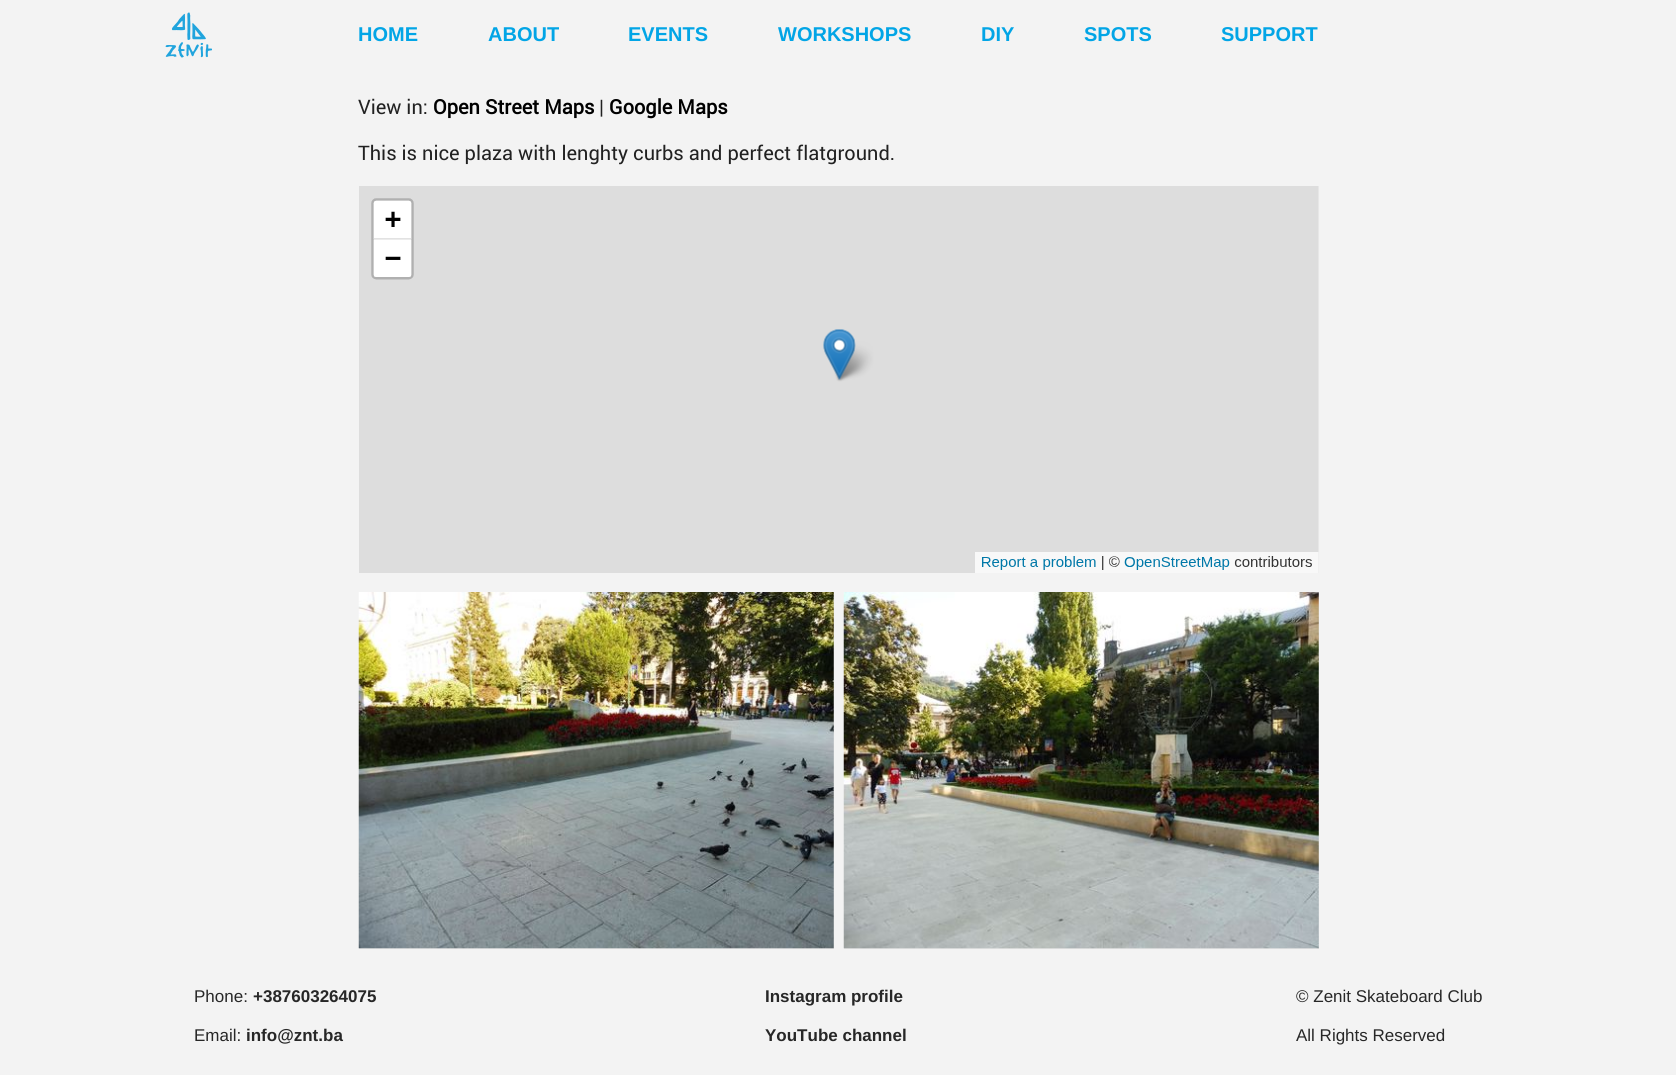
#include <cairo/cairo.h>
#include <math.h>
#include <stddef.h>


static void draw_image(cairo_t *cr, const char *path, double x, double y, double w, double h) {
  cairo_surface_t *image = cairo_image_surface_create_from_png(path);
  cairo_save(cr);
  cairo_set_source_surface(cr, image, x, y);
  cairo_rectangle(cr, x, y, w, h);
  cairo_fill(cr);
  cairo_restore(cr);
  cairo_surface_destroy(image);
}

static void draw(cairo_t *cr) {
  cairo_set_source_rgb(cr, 243 / 255.0, 243 / 255.0, 243 / 255.0);
  cairo_paint(cr);
  draw_image(cr, "images/1.png", 165, 12, 47, 46);
  draw_image(cr, "images/2.png", 359, 186, 960, 387);
  cairo_set_source_rgb(cr, 227 / 255.0, 227 / 255.0, 227 / 255.0);
  cairo_rectangle(cr, 359, 593, 475, 356);
  cairo_fill(cr);
  draw_image(cr, "images/3.png", 358, 592, 476, 357);
  cairo_rectangle(cr, 844, 593, 475, 356);
  cairo_fill(cr);
  draw_image(cr, "images/4.png", 843, 592, 476, 357);
  cairo_select_font_face(cr, "Liberation Sans", CAIRO_FONT_SLANT_NORMAL, CAIRO_FONT_WEIGHT_BOLD);
  cairo_set_font_size(cr, 20);
  cairo_set_source_rgb(cr, 2 / 255.0, 165 / 255.0, 230 / 255.0);
  cairo_move_to(cr, 358, 41);
  cairo_show_text(cr, "HOME");
  cairo_move_to(cr, 488, 41);
  cairo_show_text(cr, "ABOUT");
  cairo_move_to(cr, 628, 41);
  cairo_show_text(cr, "EVENTS");
  cairo_move_to(cr, 778, 41);
  cairo_show_text(cr, "WORKSHOPS");
  cairo_move_to(cr, 981, 41);
  cairo_show_text(cr, "DIY");
  cairo_move_to(cr, 1084, 41);
  cairo_show_text(cr, "SPOTS");
  cairo_move_to(cr, 1221, 41);
  cairo_show_text(cr, "SUPPORT");
  cairo_select_font_face(cr, "Roboto", CAIRO_FONT_SLANT_NORMAL, CAIRO_FONT_WEIGHT_NORMAL);
  cairo_set_source_rgb(cr, 33 / 255.0, 33 / 255.0, 33 / 255.0);
  cairo_move_to(cr, 358, 114);
  cairo_show_text(cr, "View in:");
  cairo_select_font_face(cr, "Roboto", CAIRO_FONT_SLANT_NORMAL, CAIRO_FONT_WEIGHT_BOLD);
  cairo_set_source_rgb(cr, 0, 0, 0);
  cairo_move_to(cr, 433, 114);
  cairo_show_text(cr, "Open Street Maps");
  cairo_select_font_face(cr, "Roboto", CAIRO_FONT_SLANT_NORMAL, CAIRO_FONT_WEIGHT_NORMAL);
  cairo_set_source_rgb(cr, 33 / 255.0, 33 / 255.0, 33 / 255.0);
  cairo_move_to(cr, 599, 114);
  cairo_show_text(cr, "|");
  cairo_select_font_face(cr, "Roboto", CAIRO_FONT_SLANT_NORMAL, CAIRO_FONT_WEIGHT_BOLD);
  cairo_set_source_rgb(cr, 0, 0, 0);
  cairo_move_to(cr, 609, 114);
  cairo_show_text(cr, "Google Maps");
  cairo_select_font_face(cr, "Roboto", CAIRO_FONT_SLANT_NORMAL, CAIRO_FONT_WEIGHT_NORMAL);
  cairo_set_source_rgb(cr, 33 / 255.0, 33 / 255.0, 33 / 255.0);
  cairo_move_to(cr, 358, 160);
  cairo_show_text(cr, "This is nice plaza with lenghty curbs and perfect flatground.");
  cairo_select_font_face(cr, "Liberation Sans", CAIRO_FONT_SLANT_NORMAL, CAIRO_FONT_WEIGHT_NORMAL);
  cairo_set_font_size(cr, 17);
  cairo_set_source_rgb(cr, 39 / 255.0, 39 / 255.0, 39 / 255.0);
  cairo_move_to(cr, 194, 1002);
  cairo_show_text(cr, "Phone:");
  cairo_select_font_face(cr, "Liberation Sans", CAIRO_FONT_SLANT_NORMAL, CAIRO_FONT_WEIGHT_BOLD);
  cairo_move_to(cr, 253, 1002);
  cairo_show_text(cr, "+387603264075");
  cairo_select_font_face(cr, "Liberation Sans", CAIRO_FONT_SLANT_NORMAL, CAIRO_FONT_WEIGHT_NORMAL);
  cairo_move_to(cr, 194, 1041);
  cairo_show_text(cr, "Email:");
  cairo_select_font_face(cr, "Liberation Sans", CAIRO_FONT_SLANT_NORMAL, CAIRO_FONT_WEIGHT_BOLD);
  cairo_move_to(cr, 246, 1041);
  cairo_show_text(cr, "info@znt.ba");
  cairo_move_to(cr, 765, 1002);
  cairo_show_text(cr, "Instagram profile");
  cairo_move_to(cr, 765, 1041);
  cairo_show_text(cr, "YouTube channel");
  cairo_select_font_face(cr, "Liberation Sans", CAIRO_FONT_SLANT_NORMAL, CAIRO_FONT_WEIGHT_NORMAL);
  cairo_move_to(cr, 1296, 1002);
  cairo_show_text(cr, "© Zenit Skateboard Club");
  cairo_move_to(cr, 1296, 1041);
  cairo_show_text(cr, "All Rights Reserved");
}

int main(void) {
  cairo_surface_t *surface = cairo_image_surface_create(CAIRO_FORMAT_RGB24, 1676, 1075);
  cairo_t *cr = cairo_create(surface);
  cairo_font_options_t *options = cairo_font_options_create();
  cairo_font_options_set_hint_metrics(options, CAIRO_HINT_METRICS_OFF);
  cairo_font_options_set_hint_style(options, CAIRO_HINT_STYLE_NONE);
  cairo_set_font_options(cr, options);
  cairo_set_miter_limit(cr, 4);
  draw(cr);
  cairo_surface_write_to_png(surface, "out.png");
  cairo_font_options_destroy(options);
  cairo_destroy(cr);
  cairo_surface_destroy(surface);
  return 0;
}
